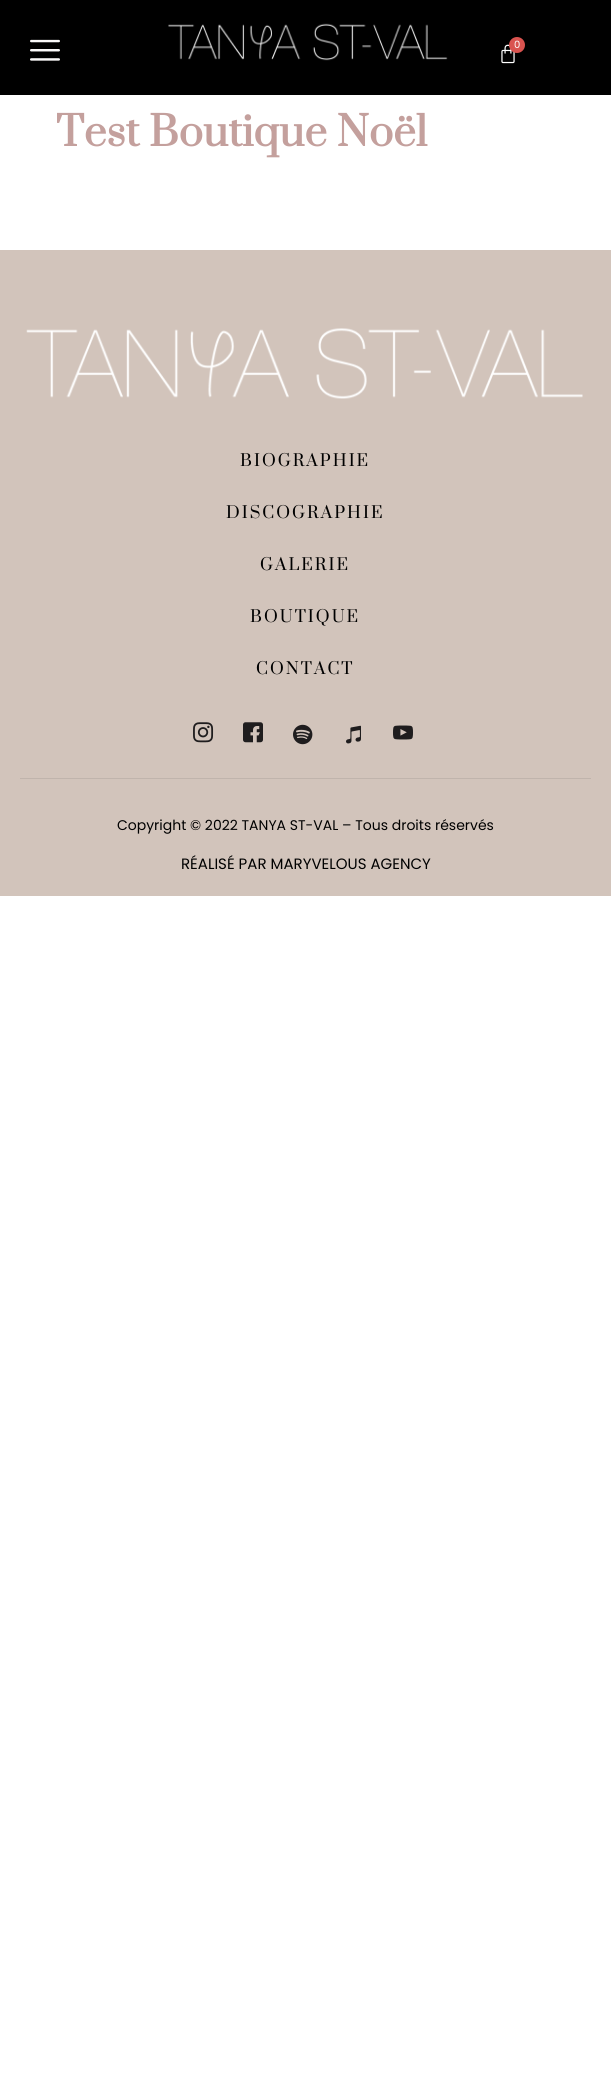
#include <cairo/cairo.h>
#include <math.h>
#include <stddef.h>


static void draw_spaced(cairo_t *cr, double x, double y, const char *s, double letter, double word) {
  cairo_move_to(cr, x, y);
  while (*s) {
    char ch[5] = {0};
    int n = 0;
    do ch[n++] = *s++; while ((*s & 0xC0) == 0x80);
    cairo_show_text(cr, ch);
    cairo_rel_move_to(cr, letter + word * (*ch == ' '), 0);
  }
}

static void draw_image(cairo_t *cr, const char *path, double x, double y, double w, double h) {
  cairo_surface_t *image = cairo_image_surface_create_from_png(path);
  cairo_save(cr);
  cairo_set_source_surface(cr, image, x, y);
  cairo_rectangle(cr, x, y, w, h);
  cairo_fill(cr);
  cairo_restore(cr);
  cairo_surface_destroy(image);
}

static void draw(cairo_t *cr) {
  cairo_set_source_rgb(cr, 1, 1, 1);
  cairo_paint(cr);
  cairo_set_source_rgb(cr, 0, 0, 0);
  cairo_rectangle(cr, 0, 0, 611, 95);
  cairo_fill(cr);
  draw_image(cr, "images/1.png", 30, 39, 30, 22);
  draw_image(cr, "images/2.png", 168, 23, 280, 38);
  draw_image(cr, "images/3.png", 501, 44, 14, 20);
  cairo_set_source_rgb(cr, 217 / 255.0, 83 / 255.0, 79 / 255.0);
  cairo_arc(cr, 517, 45, 8, 0, 2 * M_PI);
  cairo_fill(cr);
  cairo_set_source_rgb(cr, 210 / 255.0, 196 / 255.0, 187 / 255.0);
  cairo_rectangle(cr, 0, 250, 611, 646);
  cairo_fill(cr);
  draw_image(cr, "images/4.png", 26, 328, 557, 71);
  draw_image(cr, "images/5.png", 193, 722, 21, 21);
  draw_image(cr, "images/6.png", 243, 722, 20, 21);
  draw_image(cr, "images/7.png", 293, 724, 20, 21);
  draw_image(cr, "images/8.png", 346, 725, 15, 19);
  draw_image(cr, "images/9.png", 393, 725, 20, 15);
  cairo_set_source_rgb(cr, 192 / 255.0, 180 / 255.0, 172 / 255.0);
  cairo_rectangle(cr, 20, 778, 571, 1);
  cairo_fill(cr);
  cairo_select_font_face(cr, "Poppins", CAIRO_FONT_SLANT_NORMAL, CAIRO_FONT_WEIGHT_NORMAL);
  cairo_set_font_size(cr, 10);
  cairo_set_source_rgb(cr, 1, 1, 1);
  cairo_move_to(cr, 514, 48);
  cairo_show_text(cr, "0");
  cairo_select_font_face(cr, "Prata", CAIRO_FONT_SLANT_NORMAL, CAIRO_FONT_WEIGHT_BOLD);
  cairo_set_font_size(cr, 40);
  cairo_set_source_rgb(cr, 196 / 255.0, 160 / 255.0, 157 / 255.0);
  cairo_move_to(cr, 56, 146);
  cairo_show_text(cr, "Test Boutique Noël");
  cairo_select_font_face(cr, "Prata", CAIRO_FONT_SLANT_NORMAL, CAIRO_FONT_WEIGHT_NORMAL);
  cairo_set_font_size(cr, 16);
  cairo_set_source_rgb(cr, 0, 0, 0);
  draw_spaced(cr, 240, 466, "BIOGRAPHIE", 2, 0);
  draw_spaced(cr, 226, 518, "DISCOGRAPHIE", 2, 0);
  draw_spaced(cr, 260, 570, "GALERIE", 2, 0);
  draw_spaced(cr, 250, 622, "BOUTIQUE", 2, 0);
  draw_spaced(cr, 256, 674, "CONTACT", 2, 0);
  cairo_select_font_face(cr, "Poppins", CAIRO_FONT_SLANT_NORMAL, CAIRO_FONT_WEIGHT_NORMAL);
  cairo_set_font_size(cr, 14);
  cairo_move_to(cr, 117, 830);
  cairo_show_text(cr, "Copyright © 2022 TANYA ST-VAL – Tous droits réservés");
  cairo_set_font_size(cr, 15);
  cairo_move_to(cr, 181, 869);
  cairo_show_text(cr, "RÉALISÉ PAR MARYVELOUS AGENCY");
}

int main(void) {
  cairo_surface_t *surface = cairo_image_surface_create(CAIRO_FORMAT_RGB24, 611, 2081);
  cairo_t *cr = cairo_create(surface);
  cairo_font_options_t *options = cairo_font_options_create();
  cairo_font_options_set_hint_metrics(options, CAIRO_HINT_METRICS_OFF);
  cairo_font_options_set_hint_style(options, CAIRO_HINT_STYLE_NONE);
  cairo_set_font_options(cr, options);
  cairo_set_miter_limit(cr, 4);
  draw(cr);
  cairo_surface_write_to_png(surface, "out.png");
  cairo_font_options_destroy(options);
  cairo_destroy(cr);
  cairo_surface_destroy(surface);
  return 0;
}
